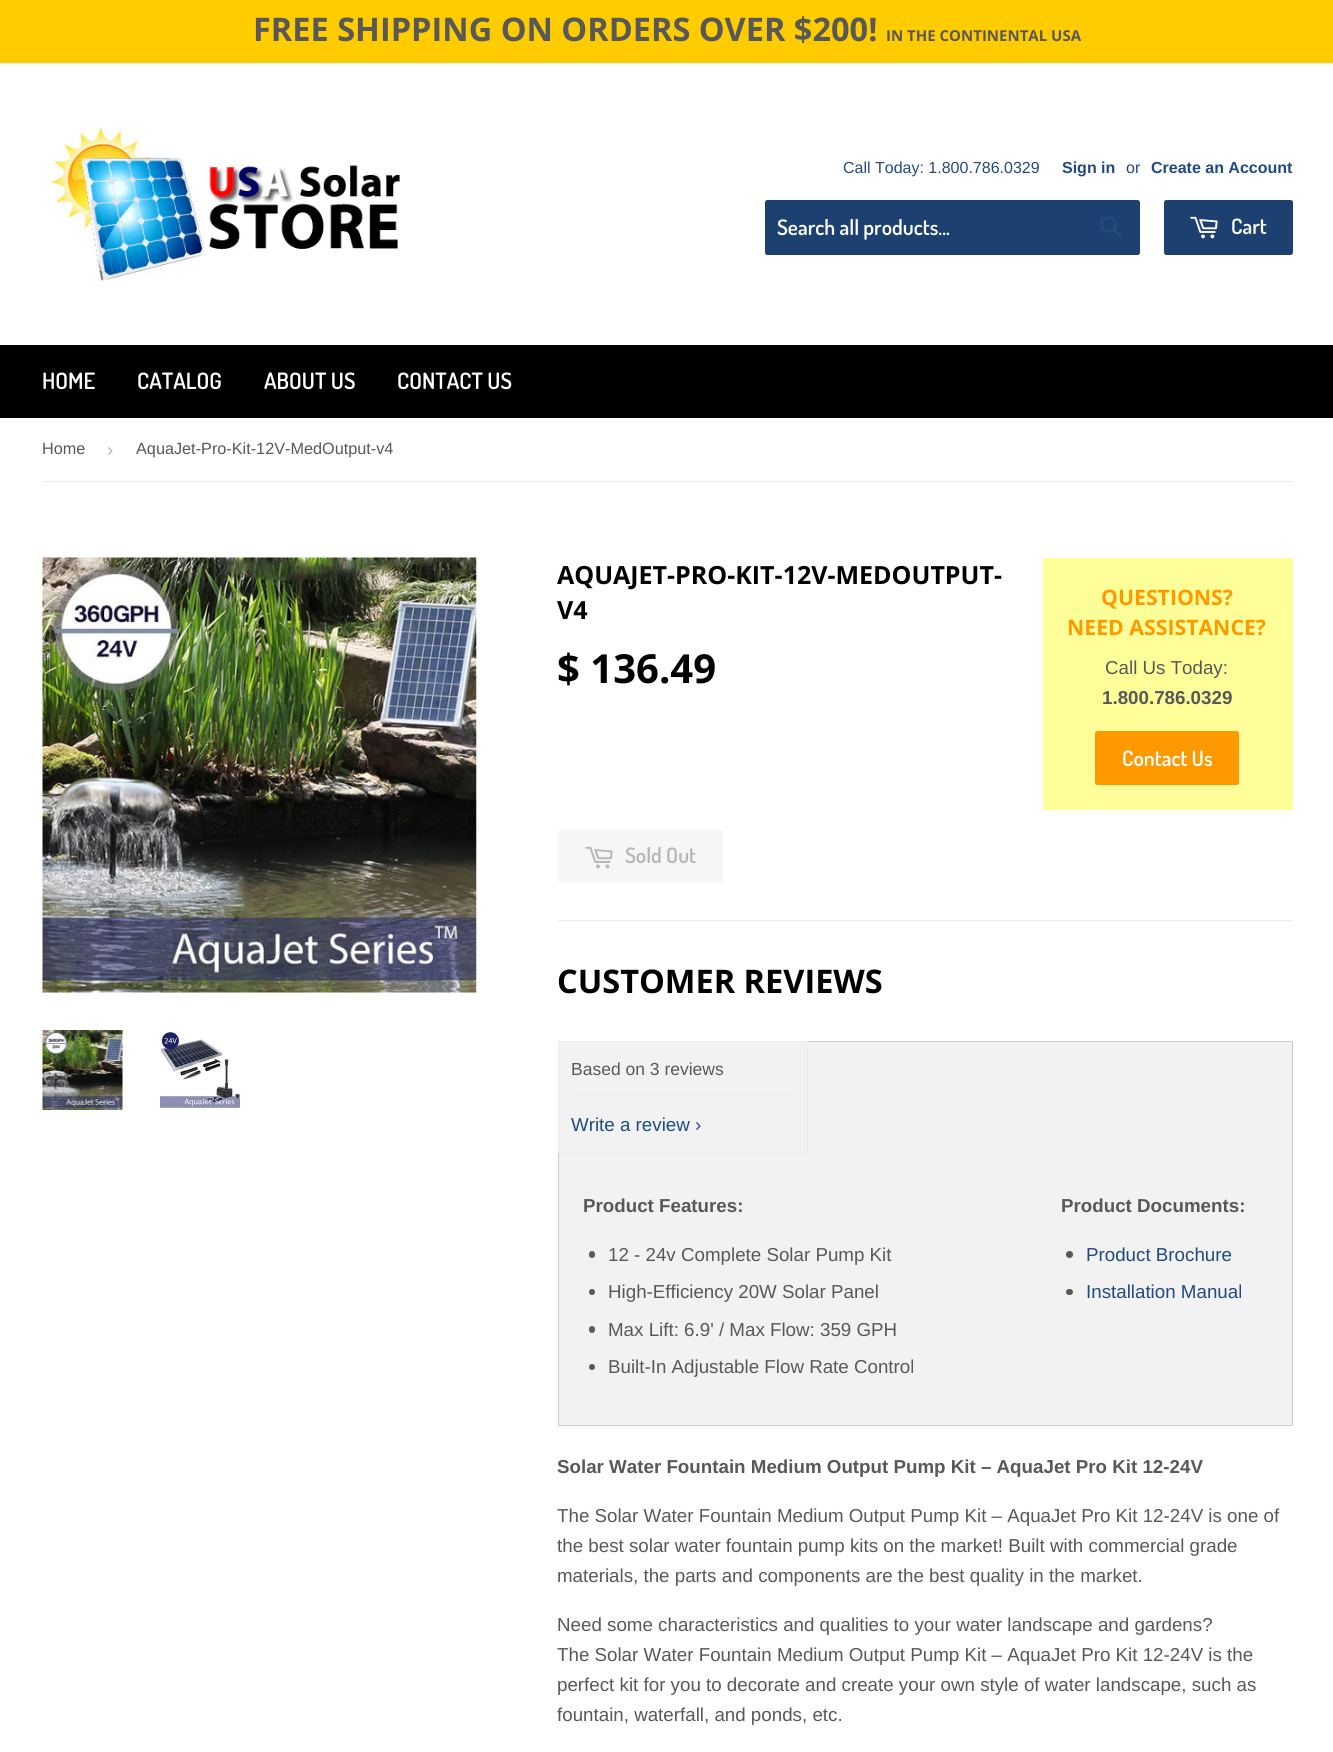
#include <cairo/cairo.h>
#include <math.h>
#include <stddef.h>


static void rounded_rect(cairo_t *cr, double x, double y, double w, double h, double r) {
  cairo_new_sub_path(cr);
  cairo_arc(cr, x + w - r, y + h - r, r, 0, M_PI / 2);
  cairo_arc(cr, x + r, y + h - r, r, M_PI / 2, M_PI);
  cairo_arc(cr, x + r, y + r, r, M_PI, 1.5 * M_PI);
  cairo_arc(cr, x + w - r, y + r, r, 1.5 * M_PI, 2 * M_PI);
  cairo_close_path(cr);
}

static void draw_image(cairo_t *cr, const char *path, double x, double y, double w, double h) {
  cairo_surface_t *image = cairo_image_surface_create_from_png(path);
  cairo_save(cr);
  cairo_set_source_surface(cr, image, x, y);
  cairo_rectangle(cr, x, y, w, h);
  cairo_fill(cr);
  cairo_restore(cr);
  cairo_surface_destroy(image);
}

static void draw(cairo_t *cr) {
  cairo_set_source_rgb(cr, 1, 1, 1);
  cairo_paint(cr);
  cairo_set_source_rgb(cr, 1, 204 / 255.0, 0);
  cairo_rectangle(cr, 0, 0, 1333, 63);
  cairo_fill(cr);
  draw_image(cr, "images/1.png", 49, 126, 351, 156);
  cairo_set_source_rgb(cr, 28 / 255.0, 65 / 255.0, 112 / 255.0);
  rounded_rect(cr, 765, 200, 375, 55, 2.5);
  cairo_fill(cr);
  draw_image(cr, "images/2.png", 1100, 216, 23, 23);
  rounded_rect(cr, 1164, 200, 129, 55, 2.5);
  cairo_fill(cr);
  draw_image(cr, "images/3.png", 1190, 216, 28, 23);
  cairo_set_source_rgb(cr, 0, 0, 0);
  cairo_rectangle(cr, 0, 345, 1333, 73);
  cairo_fill(cr);
  cairo_set_source_rgb(cr, 236 / 255.0, 236 / 255.0, 236 / 255.0);
  cairo_rectangle(cr, 43, 481, 1250, 1);
  cairo_fill(cr);
  draw_image(cr, "images/4.png", 42, 557, 435, 436);
  draw_image(cr, "images/5.png", 42, 1030, 81, 80);
  draw_image(cr, "images/6.png", 160, 1032, 80, 76);
  cairo_set_source_rgb(cr, 1, 1, 153 / 255.0);
  cairo_rectangle(cr, 1043, 558, 250, 252);
  cairo_fill(cr);
  cairo_set_source_rgb(cr, 1, 153 / 255.0, 0);
  rounded_rect(cr, 1095, 731, 144, 54, 2.5);
  cairo_fill(cr);
  cairo_set_source_rgb(cr, 246 / 255.0, 246 / 255.0, 246 / 255.0);
  rounded_rect(cr, 558, 830, 165, 53, 2.5);
  cairo_fill(cr);
  draw_image(cr, "images/7.png", 585, 846, 28, 23);
  cairo_set_source_rgb(cr, 236 / 255.0, 236 / 255.0, 236 / 255.0);
  cairo_rectangle(cr, 558, 920, 735, 1);
  cairo_fill(cr);
  cairo_set_source_rgb(cr, 242 / 255.0, 242 / 255.0, 242 / 255.0);
  cairo_rectangle(cr, 558.5, 1041.5, 734, 384);
  cairo_fill_preserve(cr);
  cairo_set_source_rgb(cr, 204 / 255.0, 204 / 255.0, 204 / 255.0);
  cairo_set_line_width(cr, 1);
  cairo_stroke(cr);
  cairo_rectangle(cr, 558.5, 1041.5, 249, 111);
  cairo_set_source_rgb(cr, 236 / 255.0, 236 / 255.0, 236 / 255.0);
  cairo_stroke(cr);
  cairo_rectangle(cr, 571, 1095, 223, 1);
  cairo_fill(cr);
  cairo_set_source_rgb(cr, 88 / 255.0, 88 / 255.0, 88 / 255.0);
  rounded_rect(cr, 589, 1251, 6, 7, 3);
  cairo_fill(cr);
  cairo_arc(cr, 592, 1292, 3, 0, 2 * M_PI);
  cairo_fill(cr);
  rounded_rect(cr, 589, 1326, 6, 7, 3);
  cairo_fill(cr);
  cairo_arc(cr, 592, 1367, 3, 0, 2 * M_PI);
  cairo_fill(cr);
  cairo_arc(cr, 1069.5, 1254.5, 3.5, 0, 2 * M_PI);
  cairo_fill(cr);
  rounded_rect(cr, 1066, 1289, 7, 6, 3);
  cairo_fill(cr);
  cairo_select_font_face(cr, "Open Sans", CAIRO_FONT_SLANT_NORMAL, CAIRO_FONT_WEIGHT_BOLD);
  cairo_set_font_size(cr, 32.5);
  cairo_move_to(cr, 253, 41);
  cairo_show_text(cr, "FREE SHIPPING ON ORDERS OVER $200!");
  cairo_set_font_size(cr, 15);
  cairo_move_to(cr, 886, 41);
  cairo_show_text(cr, "IN THE CONTINENTAL USA");
  cairo_select_font_face(cr, "Liberation Sans", CAIRO_FONT_SLANT_NORMAL, CAIRO_FONT_WEIGHT_NORMAL);
  cairo_set_font_size(cr, 16);
  cairo_set_source_rgb(cr, 32 / 255.0, 74 / 255.0, 128 / 255.0);
  cairo_move_to(cr, 843, 173);
  cairo_show_text(cr, "Call Today: 1.800.786.0329");
  cairo_select_font_face(cr, "Liberation Sans", CAIRO_FONT_SLANT_NORMAL, CAIRO_FONT_WEIGHT_BOLD);
  cairo_move_to(cr, 1062, 173);
  cairo_show_text(cr, "Sign in");
  cairo_select_font_face(cr, "Liberation Sans", CAIRO_FONT_SLANT_NORMAL, CAIRO_FONT_WEIGHT_NORMAL);
  cairo_move_to(cr, 1126, 173);
  cairo_show_text(cr, "or");
  cairo_select_font_face(cr, "Liberation Sans", CAIRO_FONT_SLANT_NORMAL, CAIRO_FONT_WEIGHT_BOLD);
  cairo_move_to(cr, 1151, 173);
  cairo_show_text(cr, "Create an Account");
  cairo_select_font_face(cr, "Dosis SemiBold", CAIRO_FONT_SLANT_NORMAL, CAIRO_FONT_WEIGHT_NORMAL);
  cairo_set_font_size(cr, 21.25);
  cairo_set_source_rgb(cr, 1, 1, 1);
  cairo_move_to(cr, 777, 235);
  cairo_show_text(cr, "Search all products...");
  cairo_move_to(cr, 1231, 234);
  cairo_show_text(cr, "Cart");
  cairo_set_font_size(cr, 22.5);
  cairo_move_to(cr, 42, 389);
  cairo_show_text(cr, "HOME");
  cairo_move_to(cr, 137, 389);
  cairo_show_text(cr, "CATALOG");
  cairo_move_to(cr, 264, 389);
  cairo_show_text(cr, "ABOUT US");
  cairo_move_to(cr, 397, 389);
  cairo_show_text(cr, "CONTACT US");
  cairo_select_font_face(cr, "Liberation Sans", CAIRO_FONT_SLANT_NORMAL, CAIRO_FONT_WEIGHT_NORMAL);
  cairo_set_font_size(cr, 16.25);
  cairo_set_source_rgb(cr, 88 / 255.0, 88 / 255.0, 88 / 255.0);
  cairo_move_to(cr, 42, 454);
  cairo_show_text(cr, "Home");
  cairo_set_font_size(cr, 18.75);
  cairo_set_source_rgb(cr, 182 / 255.0, 182 / 255.0, 182 / 255.0);
  cairo_move_to(cr, 107, 456);
  cairo_show_text(cr, "›");
  cairo_set_font_size(cr, 16.25);
  cairo_set_source_rgb(cr, 88 / 255.0, 88 / 255.0, 88 / 255.0);
  cairo_move_to(cr, 136, 454);
  cairo_show_text(cr, "AquaJet-Pro-Kit-12V-MedOutput-v4");
  cairo_select_font_face(cr, "Open Sans", CAIRO_FONT_SLANT_NORMAL, CAIRO_FONT_WEIGHT_BOLD);
  cairo_set_font_size(cr, 25);
  cairo_set_source_rgb(cr, 0, 0, 0);
  cairo_move_to(cr, 557, 584);
  cairo_show_text(cr, "AQUAJET-PRO-KIT-12V-MEDOUTPUT-");
  cairo_move_to(cr, 557, 619);
  cairo_show_text(cr, "V4");
  cairo_set_font_size(cr, 21.25);
  cairo_set_source_rgb(cr, 1, 153 / 255.0, 0);
  cairo_move_to(cr, 1101, 605);
  cairo_show_text(cr, "QUESTIONS?");
  cairo_move_to(cr, 1067, 635);
  cairo_show_text(cr, "NEED ASSISTANCE?");
  cairo_select_font_face(cr, "Liberation Sans", CAIRO_FONT_SLANT_NORMAL, CAIRO_FONT_WEIGHT_NORMAL);
  cairo_set_font_size(cr, 18.75);
  cairo_set_source_rgb(cr, 88 / 255.0, 88 / 255.0, 88 / 255.0);
  cairo_move_to(cr, 1105, 674);
  cairo_show_text(cr, "Call Us Today:");
  cairo_select_font_face(cr, "Liberation Sans", CAIRO_FONT_SLANT_NORMAL, CAIRO_FONT_WEIGHT_BOLD);
  cairo_move_to(cr, 1102, 704);
  cairo_show_text(cr, "1.800.786.0329");
  cairo_select_font_face(cr, "Dosis SemiBold", CAIRO_FONT_SLANT_NORMAL, CAIRO_FONT_WEIGHT_NORMAL);
  cairo_set_font_size(cr, 21.25);
  cairo_set_source_rgb(cr, 1, 1, 1);
  cairo_move_to(cr, 1122, 766);
  cairo_show_text(cr, "Contact Us");
  cairo_select_font_face(cr, "Open Sans", CAIRO_FONT_SLANT_NORMAL, CAIRO_FONT_WEIGHT_BOLD);
  cairo_set_font_size(cr, 40);
  cairo_set_source_rgb(cr, 0, 0, 0);
  cairo_move_to(cr, 557, 683);
  cairo_show_text(cr, "$ 136.49");
  cairo_select_font_face(cr, "Dosis SemiBold", CAIRO_FONT_SLANT_NORMAL, CAIRO_FONT_WEIGHT_NORMAL);
  cairo_set_font_size(cr, 21.25);
  cairo_set_source_rgb(cr, 182 / 255.0, 182 / 255.0, 182 / 255.0);
  cairo_move_to(cr, 625, 863);
  cairo_show_text(cr, "Sold Out");
  cairo_select_font_face(cr, "Open Sans", CAIRO_FONT_SLANT_NORMAL, CAIRO_FONT_WEIGHT_BOLD);
  cairo_set_font_size(cr, 32.5);
  cairo_set_source_rgb(cr, 0, 0, 0);
  cairo_move_to(cr, 557, 993);
  cairo_show_text(cr, "CUSTOMER REVIEWS");
  cairo_select_font_face(cr, "Liberation Sans", CAIRO_FONT_SLANT_NORMAL, CAIRO_FONT_WEIGHT_NORMAL);
  cairo_set_font_size(cr, 17.5);
  cairo_set_source_rgb(cr, 88 / 255.0, 88 / 255.0, 88 / 255.0);
  cairo_move_to(cr, 571, 1075);
  cairo_show_text(cr, "Based on 3 reviews");
  cairo_set_font_size(cr, 18.75);
  cairo_set_source_rgb(cr, 32 / 255.0, 74 / 255.0, 128 / 255.0);
  cairo_move_to(cr, 571, 1131);
  cairo_show_text(cr, "Write a review ›");
  cairo_select_font_face(cr, "Liberation Sans", CAIRO_FONT_SLANT_NORMAL, CAIRO_FONT_WEIGHT_BOLD);
  cairo_set_source_rgb(cr, 88 / 255.0, 88 / 255.0, 88 / 255.0);
  cairo_move_to(cr, 583, 1212);
  cairo_show_text(cr, "Product Features:");
  cairo_select_font_face(cr, "Liberation Sans", CAIRO_FONT_SLANT_NORMAL, CAIRO_FONT_WEIGHT_NORMAL);
  cairo_move_to(cr, 608, 1261);
  cairo_show_text(cr, "12 - 24v Complete Solar Pump Kit");
  cairo_move_to(cr, 608, 1298);
  cairo_show_text(cr, "High-Efficiency 20W Solar Panel");
  cairo_move_to(cr, 608, 1336);
  cairo_show_text(cr, "Max Lift: 6.9' / Max Flow: 359 GPH");
  cairo_move_to(cr, 608, 1373);
  cairo_show_text(cr, "Built-In Adjustable Flow Rate Control");
  cairo_select_font_face(cr, "Liberation Sans", CAIRO_FONT_SLANT_NORMAL, CAIRO_FONT_WEIGHT_BOLD);
  cairo_move_to(cr, 1061, 1212);
  cairo_show_text(cr, "Product Documents:");
  cairo_select_font_face(cr, "Liberation Sans", CAIRO_FONT_SLANT_NORMAL, CAIRO_FONT_WEIGHT_NORMAL);
  cairo_set_source_rgb(cr, 32 / 255.0, 74 / 255.0, 128 / 255.0);
  cairo_move_to(cr, 1086, 1261);
  cairo_show_text(cr, "Product Brochure");
  cairo_move_to(cr, 1086, 1298);
  cairo_show_text(cr, "Installation Manual");
  cairo_select_font_face(cr, "Liberation Sans", CAIRO_FONT_SLANT_NORMAL, CAIRO_FONT_WEIGHT_BOLD);
  cairo_set_source_rgb(cr, 88 / 255.0, 88 / 255.0, 88 / 255.0);
  cairo_move_to(cr, 557, 1473);
  cairo_show_text(cr, "Solar Water Fountain Medium Output Pump Kit – AquaJet Pro Kit 12-24V");
  cairo_select_font_face(cr, "Liberation Sans", CAIRO_FONT_SLANT_NORMAL, CAIRO_FONT_WEIGHT_NORMAL);
  cairo_move_to(cr, 557, 1522);
  cairo_show_text(cr, "The Solar Water Fountain Medium Output Pump Kit – AquaJet Pro Kit 12-24V is one of");
  cairo_move_to(cr, 557, 1552);
  cairo_show_text(cr, "the best solar water fountain pump kits on the market! Built with commercial grade");
  cairo_move_to(cr, 557, 1582);
  cairo_show_text(cr, "materials, the parts and components are the best quality in the market.");
  cairo_move_to(cr, 557, 1631);
  cairo_show_text(cr, "Need some characteristics and qualities to your water landscape and gardens?");
  cairo_move_to(cr, 557, 1661);
  cairo_show_text(cr, "The Solar Water Fountain Medium Output Pump Kit – AquaJet Pro Kit 12-24V is the");
  cairo_move_to(cr, 557, 1691);
  cairo_show_text(cr, "perfect kit for you to decorate and create your own style of water landscape, such as");
  cairo_move_to(cr, 557, 1721);
  cairo_show_text(cr, "fountain, waterfall, and ponds, etc.");
}

int main(void) {
  cairo_surface_t *surface = cairo_image_surface_create(CAIRO_FORMAT_RGB24, 1333, 1752);
  cairo_t *cr = cairo_create(surface);
  cairo_font_options_t *options = cairo_font_options_create();
  cairo_font_options_set_hint_metrics(options, CAIRO_HINT_METRICS_OFF);
  cairo_font_options_set_hint_style(options, CAIRO_HINT_STYLE_NONE);
  cairo_set_font_options(cr, options);
  cairo_set_miter_limit(cr, 4);
  draw(cr);
  cairo_surface_write_to_png(surface, "out.png");
  cairo_font_options_destroy(options);
  cairo_destroy(cr);
  cairo_surface_destroy(surface);
  return 0;
}
